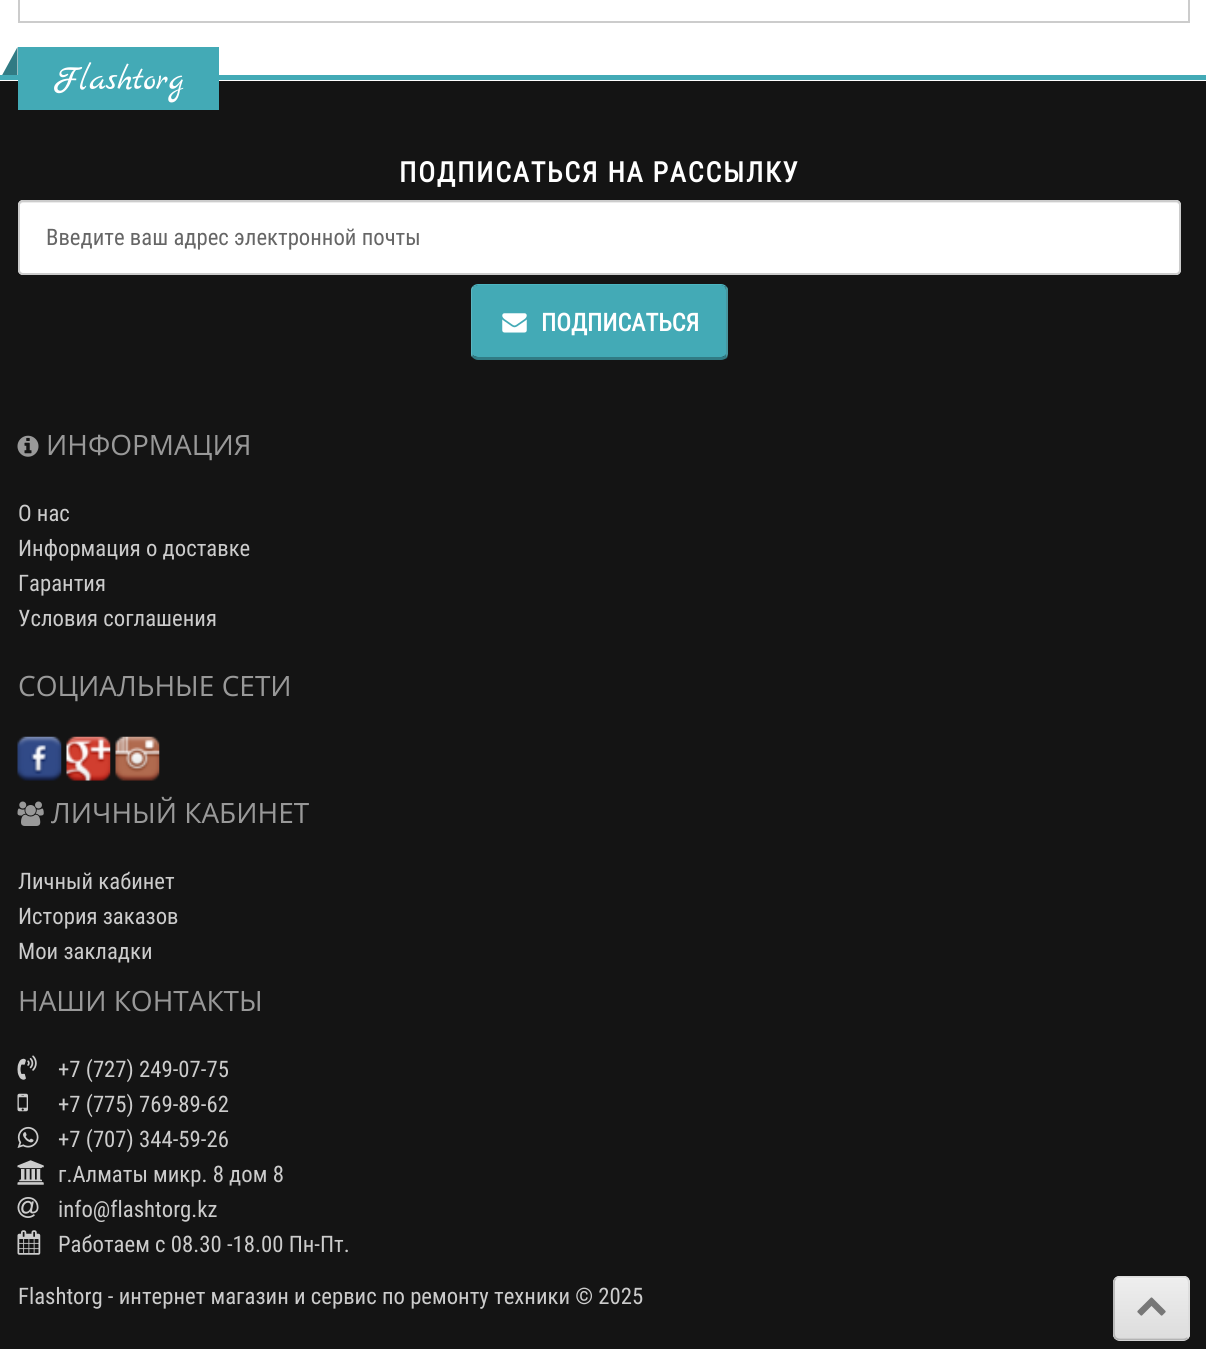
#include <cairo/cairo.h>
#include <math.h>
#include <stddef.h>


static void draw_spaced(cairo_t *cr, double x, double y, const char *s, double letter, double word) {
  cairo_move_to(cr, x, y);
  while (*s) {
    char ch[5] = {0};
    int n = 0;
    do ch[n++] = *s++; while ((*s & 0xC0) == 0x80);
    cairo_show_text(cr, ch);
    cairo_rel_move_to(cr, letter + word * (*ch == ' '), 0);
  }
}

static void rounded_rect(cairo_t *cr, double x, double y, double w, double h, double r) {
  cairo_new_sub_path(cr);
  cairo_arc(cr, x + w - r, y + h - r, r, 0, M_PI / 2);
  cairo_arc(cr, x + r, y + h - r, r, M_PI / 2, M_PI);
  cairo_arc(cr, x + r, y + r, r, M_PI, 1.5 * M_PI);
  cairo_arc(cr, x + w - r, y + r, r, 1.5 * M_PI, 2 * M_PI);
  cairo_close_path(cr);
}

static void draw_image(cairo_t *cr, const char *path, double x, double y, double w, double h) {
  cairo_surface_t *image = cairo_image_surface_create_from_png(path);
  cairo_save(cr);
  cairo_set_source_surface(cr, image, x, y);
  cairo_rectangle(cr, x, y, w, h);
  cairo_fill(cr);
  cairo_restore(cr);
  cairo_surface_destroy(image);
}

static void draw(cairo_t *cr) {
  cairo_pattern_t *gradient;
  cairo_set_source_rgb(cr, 1, 1, 1);
  cairo_paint(cr);
  cairo_set_source_rgb(cr, 204 / 255.0, 204 / 255.0, 204 / 255.0);
  cairo_rectangle(cr, 1188, 0, 2, 23);
  cairo_fill(cr);
  cairo_rectangle(cr, 18, 21, 1172, 2);
  cairo_fill(cr);
  cairo_rectangle(cr, 18, 0, 2, 23);
  cairo_fill(cr);
  cairo_set_source_rgb(cr, 49 / 255.0, 123 / 255.0, 132 / 255.0);
  cairo_new_path(cr);
  cairo_move_to(cr, 17.5, 47);
  cairo_line_to(cr, 17.5, 79);
  cairo_line_to(cr, 0, 79);
  cairo_close_path(cr);
  cairo_fill(cr);
  cairo_set_source_rgb(cr, 67 / 255.0, 170 / 255.0, 182 / 255.0);
  cairo_rectangle(cr, 0, 75, 1206, 5);
  cairo_fill(cr);
  cairo_set_source_rgb(cr, 20 / 255.0, 20 / 255.0, 20 / 255.0);
  cairo_rectangle(cr, 0, 81, 1206, 1268);
  cairo_fill(cr);
  cairo_set_source_rgb(cr, 67 / 255.0, 170 / 255.0, 182 / 255.0);
  cairo_rectangle(cr, 18, 47, 201, 63);
  cairo_fill(cr);
  cairo_set_source_rgb(cr, 1, 1, 1);
  rounded_rect(cr, 18, 200, 1163, 75, 5);
  cairo_fill(cr);
  cairo_set_source_rgb(cr, 236 / 255.0, 236 / 255.0, 236 / 255.0);
  cairo_new_path(cr);
  cairo_move_to(cr, 23, 203);
  cairo_line_to(cr, 1176, 203);
  cairo_curve_to(cr, 1178, 203, 1180, 205, 1180, 206);
  cairo_curve_to(cr, 1180, 203, 1179, 201, 1176, 201);
  cairo_line_to(cr, 23, 201);
  cairo_curve_to(cr, 20, 201, 19, 203, 19, 206);
  cairo_curve_to(cr, 19, 205, 21, 203, 23, 203);
  cairo_close_path(cr);
  cairo_fill(cr);
  rounded_rect(cr, 19, 201, 1161, 73, 4);
  cairo_set_source_rgb(cr, 204 / 255.0, 204 / 255.0, 204 / 255.0);
  cairo_stroke(cr);
  cairo_set_source_rgb(cr, 67 / 255.0, 170 / 255.0, 182 / 255.0);
  cairo_new_path(cr);
  cairo_move_to(cr, 478, 285);
  cairo_line_to(cr, 721, 285);
  cairo_curve_to(cr, 724, 285, 726, 288, 726, 290);
  cairo_line_to(cr, 726, 354);
  cairo_curve_to(cr, 726, 355, 724, 357, 721, 357);
  cairo_line_to(cr, 478, 357);
  cairo_curve_to(cr, 475, 357, 472, 355, 472, 354);
  cairo_line_to(cr, 472, 290);
  cairo_curve_to(cr, 472, 288, 475, 285, 478, 285);
  cairo_close_path(cr);
  cairo_fill(cr);
  cairo_set_source_rgb(cr, 76 / 255.0, 182 / 255.0, 194 / 255.0);
  cairo_new_path(cr);
  cairo_move_to(cr, 478, 284);
  cairo_curve_to(cr, 476, 284, 474, 285, 473, 286);
  cairo_line_to(cr, 474, 287);
  cairo_line_to(cr, 477, 285);
  cairo_line_to(cr, 721, 285);
  cairo_curve_to(cr, 722, 285, 724, 286, 725, 287);
  cairo_line_to(cr, 726, 286);
  cairo_curve_to(cr, 725, 285, 723, 284, 721, 284);
  cairo_close_path(cr);
  cairo_fill(cr);
  cairo_set_source_rgb(cr, 71 / 255.0, 151 / 255.0, 160 / 255.0);
  cairo_new_path(cr);
  cairo_move_to(cr, 726, 286);
  cairo_curve_to(cr, 727, 287, 728, 288, 728, 289);
  cairo_line_to(cr, 728, 354);
  cairo_line_to(cr, 727, 358);
  cairo_line_to(cr, 725, 355);
  cairo_line_to(cr, 726, 354);
  cairo_line_to(cr, 726, 290);
  cairo_line_to(cr, 725, 287);
  cairo_close_path(cr);
  cairo_fill(cr);
  cairo_set_source_rgb(cr, 49 / 255.0, 123 / 255.0, 132 / 255.0);
  cairo_new_path(cr);
  cairo_move_to(cr, 727, 358);
  cairo_curve_to(cr, 725, 359, 723, 360, 721, 360);
  cairo_line_to(cr, 478, 360);
  cairo_curve_to(cr, 476, 360, 474, 359, 472, 357);
  cairo_line_to(cr, 473, 355);
  cairo_curve_to(cr, 474, 356, 476, 357, 478, 357);
  cairo_line_to(cr, 721, 357);
  cairo_curve_to(cr, 723, 357, 725, 356, 725, 355);
  cairo_close_path(cr);
  cairo_fill(cr);
  cairo_set_source_rgb(cr, 92 / 255.0, 183 / 255.0, 194 / 255.0);
  cairo_new_path(cr);
  cairo_move_to(cr, 473, 286);
  cairo_curve_to(cr, 472, 287, 471, 288, 471, 290);
  cairo_line_to(cr, 471, 354);
  cairo_curve_to(cr, 471, 355, 471, 356, 472, 357);
  cairo_line_to(cr, 473, 355);
  cairo_line_to(cr, 472, 354);
  cairo_line_to(cr, 472, 290);
  cairo_line_to(cr, 474, 287);
  cairo_close_path(cr);
  cairo_fill(cr);
  draw_image(cr, "images/1.png", 502, 313, 25, 20);
  draw_image(cr, "images/2.png", 17, 435, 22, 22);
  draw_image(cr, "images/3.png", 17, 736, 45, 45);
  draw_image(cr, "images/4.png", 66, 736, 45, 45);
  draw_image(cr, "images/5.png", 115, 736, 45, 45);
  draw_image(cr, "images/6.png", 17, 801, 27, 25);
  draw_image(cr, "images/7.png", 17, 1055, 20, 25);
  draw_image(cr, "images/8.png", 17, 1093, 11, 19);
  draw_image(cr, "images/9.png", 17, 1126, 22, 22);
  draw_image(cr, "images/10.png", 17, 1160, 27, 25);
  draw_image(cr, "images/11.png", 17, 1197, 22, 21);
  draw_image(cr, "images/12.png", 17, 1230, 24, 25);
  cairo_set_source_rgb(cr, 231 / 255.0, 231 / 255.0, 231 / 255.0);
  rounded_rect(cr, 1113, 1276, 77, 65, 7);
  cairo_fill(cr);
  cairo_save(cr);
  rounded_rect(cr, 1113, 1276, 77, 65, 7);
  cairo_clip(cr);
  gradient = cairo_pattern_create_linear(1152, 1278, 1152, 1339);
  cairo_pattern_add_color_stop_rgba(gradient, 0, 238 / 255.0, 238 / 255.0, 238 / 255.0, 1);
  cairo_pattern_add_color_stop_rgba(gradient, 1, 221 / 255.0, 221 / 255.0, 221 / 255.0, 1);
  cairo_set_source(cr, gradient);
  cairo_pattern_destroy(gradient);
  cairo_rectangle(cr, 1113, 1278, 77, 61);
  cairo_fill(cr);
  cairo_restore(cr);
  cairo_set_source_rgb(cr, 241 / 255.0, 241 / 255.0, 241 / 255.0);
  cairo_new_path(cr);
  cairo_move_to(cr, 1120, 1279);
  cairo_line_to(cr, 1183, 1279);
  cairo_curve_to(cr, 1186, 1279, 1188, 1282, 1188, 1284);
  cairo_curve_to(cr, 1188, 1276, 1178, 1278, 1172, 1278);
  cairo_line_to(cr, 1130, 1278);
  cairo_curve_to(cr, 1125, 1278, 1115, 1276, 1115, 1284);
  cairo_curve_to(cr, 1115, 1282, 1117, 1279, 1120, 1279);
  cairo_close_path(cr);
  cairo_fill(cr);
  cairo_save(cr);
  cairo_rectangle(cr, 1113, 1276, 77, 65);
  cairo_clip(cr);
  cairo_new_path(cr);
  cairo_move_to(cr, 1115.5, 1278.5);
  cairo_curve_to(cr, 1119, 1275, 1127.5, 1276.5, 1130.5, 1276.5);
  cairo_line_to(cr, 1172.5, 1276.5);
  cairo_curve_to(cr, 1189, 1276.5, 1189, 1275, 1189, 1291);
  cairo_line_to(cr, 1189, 1325);
  cairo_curve_to(cr, 1189, 1328.5, 1190.5, 1334.5, 1187.5, 1338);
  cairo_set_source_rgb(cr, 221 / 255.0, 221 / 255.0, 221 / 255.0);
  cairo_set_line_width(cr, 1.8);
  cairo_stroke(cr);
  cairo_restore(cr);
  cairo_new_path(cr);
  cairo_move_to(cr, 1187.5, 1338);
  cairo_curve_to(cr, 1186, 1339, 1184.5, 1339.5, 1183, 1339.5);
  cairo_line_to(cr, 1120, 1339.5);
  cairo_curve_to(cr, 1118.5, 1339.5, 1117, 1339, 1115.5, 1338);
  cairo_set_source_rgb(cr, 179 / 255.0, 179 / 255.0, 179 / 255.0);
  cairo_set_line_width(cr, 1.8);
  cairo_stroke(cr);
  cairo_new_path(cr);
  cairo_move_to(cr, 1115.5, 1338);
  cairo_curve_to(cr, 1114.5, 1336.5, 1114, 1335, 1114, 1333.5);
  cairo_line_to(cr, 1114, 1283);
  cairo_curve_to(cr, 1114, 1281, 1114.5, 1279.5, 1115.5, 1278.5);
  cairo_set_source_rgb(cr, 183 / 255.0, 183 / 255.0, 183 / 255.0);
  cairo_stroke(cr);
  draw_image(cr, "images/13.png", 1137, 1297, 29, 19);
  cairo_select_font_face(cr, "Marck Script", CAIRO_FONT_SLANT_NORMAL, CAIRO_FONT_WEIGHT_NORMAL);
  cairo_set_font_size(cr, 35);
  cairo_set_source_rgb(cr, 1, 1, 1);
  cairo_move_to(cr, 53, 89);
  cairo_show_text(cr, "Flashtorg");
  cairo_select_font_face(cr, "Roboto Condensed", CAIRO_FONT_SLANT_NORMAL, CAIRO_FONT_WEIGHT_BOLD);
  cairo_set_font_size(cr, 28);
  draw_spaced(cr, 399, 182, "ПОДПИСАТЬСЯ НА РАССЫЛКУ", 1.75, 0);
  cairo_select_font_face(cr, "Roboto Condensed", CAIRO_FONT_SLANT_NORMAL, CAIRO_FONT_WEIGHT_NORMAL);
  cairo_set_font_size(cr, 22.75);
  cairo_set_source_rgb(cr, 102 / 255.0, 102 / 255.0, 102 / 255.0);
  cairo_move_to(cr, 46, 245);
  cairo_show_text(cr, "Введите ваш адрес электронной почты");
  cairo_select_font_face(cr, "Roboto Condensed", CAIRO_FONT_SLANT_NORMAL, CAIRO_FONT_WEIGHT_BOLD);
  cairo_set_font_size(cr, 24.5);
  cairo_set_source_rgb(cr, 1, 1, 1);
  cairo_move_to(cr, 541, 331);
  cairo_show_text(cr, "ПОДПИСАТЬСЯ");
  cairo_select_font_face(cr, "Open Sans", CAIRO_FONT_SLANT_NORMAL, CAIRO_FONT_WEIGHT_NORMAL);
  cairo_set_font_size(cr, 28);
  cairo_set_source_rgb(cr, 153 / 255.0, 153 / 255.0, 153 / 255.0);
  cairo_move_to(cr, 46, 455);
  cairo_show_text(cr, "ИНФОРМАЦИЯ");
  cairo_select_font_face(cr, "Roboto Condensed", CAIRO_FONT_SLANT_NORMAL, CAIRO_FONT_WEIGHT_NORMAL);
  cairo_set_font_size(cr, 22.75);
  cairo_set_source_rgb(cr, 204 / 255.0, 204 / 255.0, 204 / 255.0);
  cairo_move_to(cr, 18, 521);
  cairo_show_text(cr, "О нас");
  cairo_move_to(cr, 18, 556);
  cairo_show_text(cr, "Информация о доставке");
  cairo_move_to(cr, 18, 591);
  cairo_show_text(cr, "Гарантия");
  cairo_move_to(cr, 18, 626);
  cairo_show_text(cr, "Условия соглашения");
  cairo_select_font_face(cr, "Open Sans", CAIRO_FONT_SLANT_NORMAL, CAIRO_FONT_WEIGHT_NORMAL);
  cairo_set_font_size(cr, 28);
  cairo_set_source_rgb(cr, 153 / 255.0, 153 / 255.0, 153 / 255.0);
  cairo_move_to(cr, 18, 696);
  cairo_show_text(cr, "СОЦИАЛЬНЫЕ СЕТИ");
  cairo_move_to(cr, 51, 823);
  cairo_show_text(cr, "ЛИЧНЫЙ КАБИНЕТ");
  cairo_select_font_face(cr, "Roboto Condensed", CAIRO_FONT_SLANT_NORMAL, CAIRO_FONT_WEIGHT_NORMAL);
  cairo_set_font_size(cr, 22.75);
  cairo_set_source_rgb(cr, 204 / 255.0, 204 / 255.0, 204 / 255.0);
  cairo_move_to(cr, 18, 889);
  cairo_show_text(cr, "Личный кабинет");
  cairo_move_to(cr, 18, 924);
  cairo_show_text(cr, "История заказов");
  cairo_move_to(cr, 18, 959);
  cairo_show_text(cr, "Мои закладки");
  cairo_select_font_face(cr, "Open Sans", CAIRO_FONT_SLANT_NORMAL, CAIRO_FONT_WEIGHT_NORMAL);
  cairo_set_font_size(cr, 28);
  cairo_set_source_rgb(cr, 153 / 255.0, 153 / 255.0, 153 / 255.0);
  cairo_move_to(cr, 18, 1011);
  cairo_show_text(cr, "НАШИ КОНТАКТЫ");
  cairo_select_font_face(cr, "Roboto Condensed", CAIRO_FONT_SLANT_NORMAL, CAIRO_FONT_WEIGHT_NORMAL);
  cairo_set_font_size(cr, 22.75);
  cairo_set_source_rgb(cr, 204 / 255.0, 204 / 255.0, 204 / 255.0);
  cairo_move_to(cr, 58, 1077);
  cairo_show_text(cr, "+7 (727) 249-07-75");
  cairo_move_to(cr, 58, 1112);
  cairo_show_text(cr, "+7 (775) 769-89-62");
  cairo_move_to(cr, 58, 1147);
  cairo_show_text(cr, "+7 (707) 344-59-26");
  cairo_move_to(cr, 58, 1182);
  cairo_show_text(cr, "г.Алматы микр. 8 дом 8");
  cairo_move_to(cr, 58, 1217);
  cairo_show_text(cr, "info@flashtorg.kz");
  cairo_move_to(cr, 58, 1252);
  cairo_show_text(cr, "Работаем с 08.30 -18.00 Пн-Пт.");
  cairo_move_to(cr, 18, 1304);
  cairo_show_text(cr, "Flashtorg - интернет магазин и сервис по ремонту техники © 2025");
}

int main(void) {
  cairo_surface_t *surface = cairo_image_surface_create(CAIRO_FORMAT_RGB24, 1206, 1349);
  cairo_t *cr = cairo_create(surface);
  cairo_font_options_t *options = cairo_font_options_create();
  cairo_font_options_set_hint_metrics(options, CAIRO_HINT_METRICS_OFF);
  cairo_font_options_set_hint_style(options, CAIRO_HINT_STYLE_NONE);
  cairo_set_font_options(cr, options);
  cairo_set_miter_limit(cr, 4);
  draw(cr);
  cairo_surface_write_to_png(surface, "out.png");
  cairo_font_options_destroy(options);
  cairo_destroy(cr);
  cairo_surface_destroy(surface);
  return 0;
}
